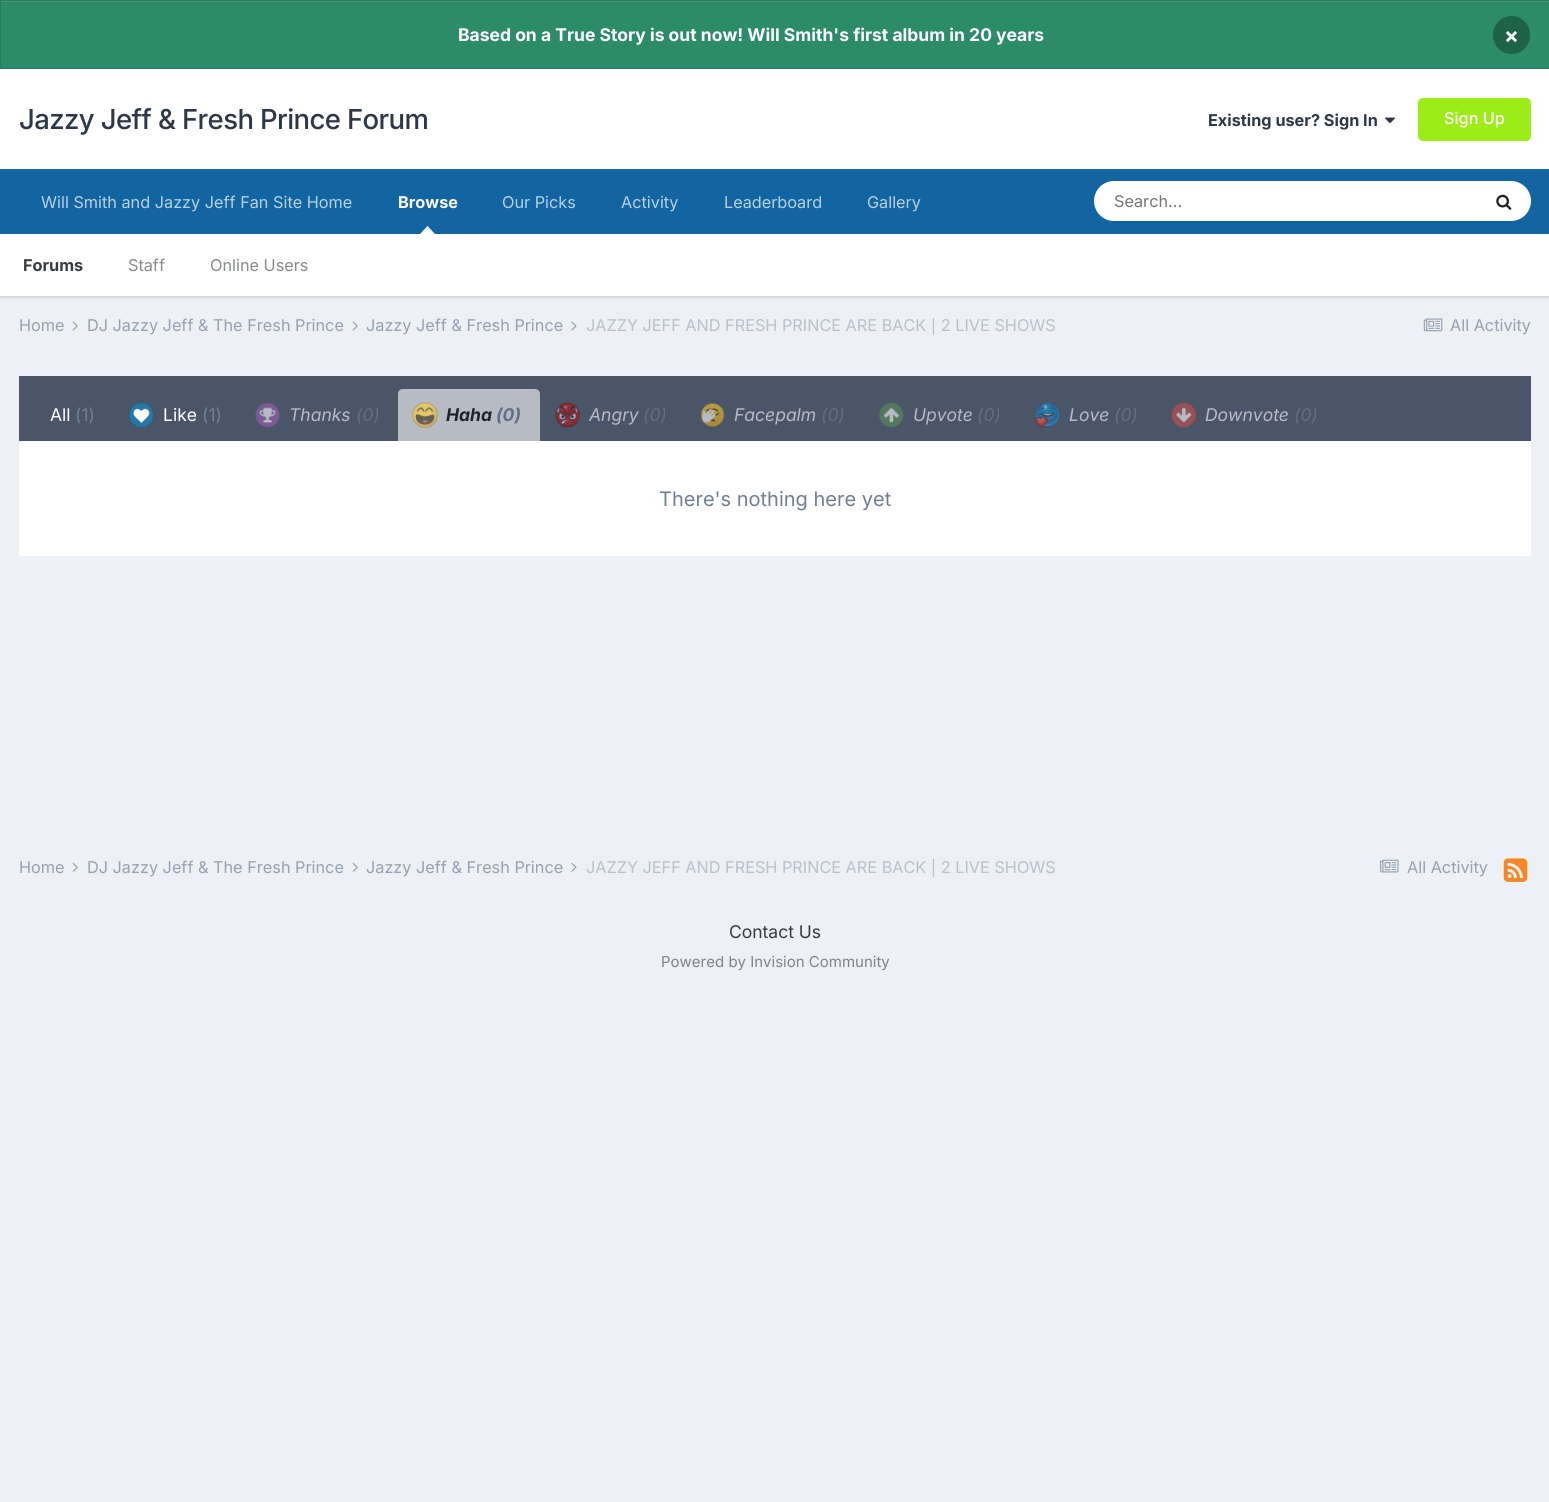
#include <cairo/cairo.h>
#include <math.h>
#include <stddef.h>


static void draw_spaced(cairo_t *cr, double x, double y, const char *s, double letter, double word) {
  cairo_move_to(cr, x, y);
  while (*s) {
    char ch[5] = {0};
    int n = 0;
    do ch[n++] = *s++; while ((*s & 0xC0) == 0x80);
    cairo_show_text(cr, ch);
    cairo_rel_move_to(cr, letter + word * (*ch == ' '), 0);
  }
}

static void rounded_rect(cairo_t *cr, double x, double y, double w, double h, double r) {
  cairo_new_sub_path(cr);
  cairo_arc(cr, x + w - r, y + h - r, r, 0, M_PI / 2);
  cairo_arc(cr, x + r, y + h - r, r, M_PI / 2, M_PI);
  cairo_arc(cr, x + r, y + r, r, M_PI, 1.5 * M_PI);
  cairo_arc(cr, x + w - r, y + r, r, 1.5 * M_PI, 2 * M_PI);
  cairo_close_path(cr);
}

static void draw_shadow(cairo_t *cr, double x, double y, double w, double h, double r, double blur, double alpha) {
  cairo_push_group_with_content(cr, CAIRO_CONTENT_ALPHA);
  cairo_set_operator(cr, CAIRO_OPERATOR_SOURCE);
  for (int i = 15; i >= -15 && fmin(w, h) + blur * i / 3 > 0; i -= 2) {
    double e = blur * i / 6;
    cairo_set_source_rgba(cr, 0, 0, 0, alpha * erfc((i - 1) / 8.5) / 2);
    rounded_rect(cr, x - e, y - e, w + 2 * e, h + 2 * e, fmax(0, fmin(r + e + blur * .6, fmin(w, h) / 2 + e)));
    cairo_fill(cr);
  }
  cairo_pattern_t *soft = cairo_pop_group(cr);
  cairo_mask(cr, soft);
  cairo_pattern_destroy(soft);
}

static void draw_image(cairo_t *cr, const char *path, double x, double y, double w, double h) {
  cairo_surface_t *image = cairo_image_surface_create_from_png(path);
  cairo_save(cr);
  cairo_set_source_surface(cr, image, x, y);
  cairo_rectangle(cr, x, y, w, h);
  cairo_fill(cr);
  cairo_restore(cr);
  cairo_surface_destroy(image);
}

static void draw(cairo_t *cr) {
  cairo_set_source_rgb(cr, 237 / 255.0, 240 / 255.0, 244 / 255.0);
  cairo_paint(cr);
  cairo_set_source_rgb(cr, 44 / 255.0, 140 / 255.0, 105 / 255.0);
  cairo_rectangle(cr, 1, 2, 1548, 66);
  cairo_fill(cr);
  cairo_set_source_rgb(cr, 65 / 255.0, 152 / 255.0, 120 / 255.0);
  cairo_rectangle(cr, 1, 1, 1548, 1);
  cairo_fill(cr);
  cairo_rectangle(cr, 0.5, 0.5, 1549, 68);
  cairo_set_source_rgb(cr, 40 / 255.0, 126 / 255.0, 95 / 255.0);
  cairo_set_line_width(cr, 1);
  cairo_stroke(cr);
  cairo_set_source_rgb(cr, 31 / 255.0, 98 / 255.0, 74 / 255.0);
  rounded_rect(cr, 1493, 16, 37, 38, 18.5);
  cairo_fill(cr);
  cairo_set_source_rgb(cr, 1, 1, 1);
  cairo_rectangle(cr, 0, 69, 1549, 100);
  cairo_fill(cr);
  draw_image(cr, "images/1.png", 1385, 117, 10, 6);
  cairo_set_source_rgb(cr, 157 / 255.0, 236 / 255.0, 23 / 255.0);
  rounded_rect(cr, 1418, 98, 113, 43, 5);
  cairo_fill(cr);
  cairo_set_source_rgb(cr, 18 / 255.0, 101 / 255.0, 161 / 255.0);
  cairo_rectangle(cr, 0, 169, 1549, 65);
  cairo_fill(cr);
  cairo_set_source_rgb(cr, 0, 0, 0);
  draw_shadow(cr, 0, 235, 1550, 63, 0, 1, 0.1);
  cairo_set_source_rgb(cr, 1, 1, 1);
  cairo_new_path(cr);
  cairo_move_to(cr, 435, 234);
  cairo_line_to(cr, 420, 234);
  cairo_line_to(cr, 427.5, 226);
  cairo_close_path(cr);
  cairo_fill(cr);
  rounded_rect(cr, 1094, 181, 437, 40, 20);
  cairo_fill(cr);
  draw_image(cr, "images/2.png", 1496, 194, 16, 16);
  cairo_rectangle(cr, 0, 234, 1549, 62);
  cairo_fill(cr);
  draw_image(cr, "images/3.png", 72, 321, 6, 10);
  draw_image(cr, "images/3.png", 352, 321, 6, 10);
  draw_image(cr, "images/4.png", 571, 321, 6, 10);
  draw_image(cr, "images/5.png", 1423, 318, 20, 14);
  cairo_set_source_rgb(cr, 74 / 255.0, 85 / 255.0, 104 / 255.0);
  cairo_rectangle(cr, 19, 376, 1512, 65);
  cairo_fill(cr);
  draw_image(cr, "images/6.png", 128, 402, 26, 26);
  draw_image(cr, "images/7.png", 255, 402, 25, 26);
  cairo_set_source_rgb(cr, 183 / 255.0, 187 / 255.0, 195 / 255.0);
  cairo_new_path(cr);
  cairo_move_to(cr, 403, 389);
  cairo_line_to(cr, 535, 389);
  cairo_curve_to(cr, 538, 389, 540, 391, 540, 394);
  cairo_line_to(cr, 540, 441);
  cairo_line_to(cr, 398, 441);
  cairo_line_to(cr, 398, 394);
  cairo_curve_to(cr, 398, 391, 400, 389, 403, 389);
  cairo_close_path(cr);
  cairo_fill(cr);
  draw_image(cr, "images/8.png", 412, 402, 26, 26);
  draw_image(cr, "images/9.png", 555, 402, 25, 26);
  draw_image(cr, "images/10.png", 700, 403, 25, 24);
  draw_image(cr, "images/11.png", 878, 402, 26, 26);
  draw_image(cr, "images/12.png", 1035, 402, 25, 26);
  draw_image(cr, "images/13.png", 1171, 402, 26, 26);
  cairo_set_source_rgb(cr, 1, 1, 1);
  cairo_rectangle(cr, 19, 441, 1512, 115);
  cairo_fill(cr);
  draw_image(cr, "images/14.png", 72, 862, 6, 10);
  draw_image(cr, "images/14.png", 352, 862, 6, 10);
  draw_image(cr, "images/15.png", 571, 862, 6, 10);
  draw_image(cr, "images/16.png", 1380, 859, 19, 14);
  draw_image(cr, "images/17.png", 1503, 858, 25, 24);
  cairo_select_font_face(cr, "Inter", CAIRO_FONT_SLANT_NORMAL, CAIRO_FONT_WEIGHT_BOLD);
  cairo_set_font_size(cr, 17.5);
  cairo_move_to(cr, 458, 41);
  cairo_show_text(cr, "Based on a True Story is out now! Will Smith's first album in 20 years");
  cairo_set_font_size(cr, 22);
  cairo_move_to(cr, 1504, 43);
  cairo_show_text(cr, "×");
  cairo_select_font_face(cr, "Inter Medium", CAIRO_FONT_SLANT_NORMAL, CAIRO_FONT_WEIGHT_NORMAL);
  cairo_set_font_size(cr, 27.5);
  cairo_set_source_rgb(cr, 45 / 255.0, 55 / 255.0, 72 / 255.0);
  draw_spaced(cr, 19, 129, "Jazzy Jeff & Fresh Prince Forum", -0.6, 0);
  cairo_select_font_face(cr, "Inter", CAIRO_FONT_SLANT_NORMAL, CAIRO_FONT_WEIGHT_BOLD);
  cairo_set_font_size(cr, 16.25);
  cairo_move_to(cr, 1208, 126);
  cairo_show_text(cr, "Existing user? Sign In");
  cairo_select_font_face(cr, "Inter Medium", CAIRO_FONT_SLANT_NORMAL, CAIRO_FONT_WEIGHT_NORMAL);
  cairo_set_source_rgb(cr, 1, 1, 1);
  cairo_move_to(cr, 1444, 124);
  cairo_show_text(cr, "Sign Up");
  cairo_select_font_face(cr, "Inter", CAIRO_FONT_SLANT_NORMAL, CAIRO_FONT_WEIGHT_NORMAL);
  cairo_set_source_rgb(cr, 184 / 255.0, 209 / 255.0, 227 / 255.0);
  cairo_move_to(cr, 41, 208);
  cairo_show_text(cr, "Will Smith and Jazzy Jeff Fan Site Home");
  cairo_move_to(cr, 502, 208);
  cairo_show_text(cr, "Our Picks");
  cairo_move_to(cr, 621, 208);
  cairo_show_text(cr, "Activity");
  cairo_select_font_face(cr, "Inter", CAIRO_FONT_SLANT_NORMAL, CAIRO_FONT_WEIGHT_BOLD);
  cairo_set_source_rgb(cr, 1, 1, 1);
  cairo_move_to(cr, 398, 208);
  cairo_show_text(cr, "Browse");
  cairo_set_source_rgb(cr, 53 / 255.0, 60 / 255.0, 65 / 255.0);
  cairo_move_to(cr, 23, 271);
  cairo_show_text(cr, "Forums");
  cairo_select_font_face(cr, "Inter", CAIRO_FONT_SLANT_NORMAL, CAIRO_FONT_WEIGHT_NORMAL);
  cairo_set_source_rgb(cr, 134 / 255.0, 138 / 255.0, 141 / 255.0);
  cairo_move_to(cr, 128, 271);
  cairo_show_text(cr, "Staff");
  cairo_move_to(cr, 210, 271);
  cairo_show_text(cr, "Online Users");
  cairo_set_source_rgb(cr, 184 / 255.0, 209 / 255.0, 227 / 255.0);
  cairo_move_to(cr, 724, 208);
  cairo_show_text(cr, "Leaderboard");
  cairo_move_to(cr, 867, 208);
  cairo_show_text(cr, "Gallery");
  cairo_set_source_rgb(cr, 117 / 255.0, 117 / 255.0, 117 / 255.0);
  cairo_move_to(cr, 1114, 207);
  cairo_show_text(cr, "Search...");
  cairo_set_source_rgb(cr, 150 / 255.0, 162 / 255.0, 178 / 255.0);
  cairo_move_to(cr, 19, 331);
  cairo_show_text(cr, "Home");
  cairo_move_to(cr, 87, 331);
  cairo_show_text(cr, "DJ Jazzy Jeff & The Fresh Prince");
  cairo_move_to(cr, 366, 331);
  cairo_show_text(cr, "Jazzy Jeff & Fresh Prince");
  cairo_save(cr);
  cairo_rectangle(cr, 586, 318, 469, 18);
  cairo_clip(cr);
  cairo_set_source_rgb(cr, 185 / 255.0, 193 / 255.0, 205 / 255.0);
  cairo_move_to(cr, 586, 331);
  cairo_show_text(cr, "JAZZY JEFF AND FRESH PRINCE ARE BACK | 2 LIVE SHOWS");
  cairo_restore(cr);
  cairo_move_to(cr, 1450, 331);
  cairo_show_text(cr, "All Activity");
  cairo_set_font_size(cr, 17.5);
  cairo_set_source_rgb(cr, 1, 1, 1);
  cairo_move_to(cr, 50, 421);
  cairo_show_text(cr, "All");
  cairo_set_source_rgb(cr, 113 / 255.0, 128 / 255.0, 150 / 255.0);
  cairo_move_to(cr, 75, 421);
  cairo_show_text(cr, "(1)");
  cairo_set_source_rgb(cr, 1, 1, 1);
  cairo_move_to(cr, 163, 421);
  cairo_show_text(cr, "Like");
  cairo_set_source_rgb(cr, 113 / 255.0, 128 / 255.0, 150 / 255.0);
  cairo_move_to(cr, 202, 421);
  cairo_show_text(cr, "(1)");
  cairo_select_font_face(cr, "Inter", CAIRO_FONT_SLANT_ITALIC, CAIRO_FONT_WEIGHT_NORMAL);
  cairo_set_source_rgb(cr, 183 / 255.0, 187 / 255.0, 195 / 255.0);
  cairo_move_to(cr, 289, 421);
  cairo_show_text(cr, "Thanks");
  cairo_set_source_rgb(cr, 97 / 255.0, 111 / 255.0, 132 / 255.0);
  cairo_move_to(cr, 356, 421);
  cairo_show_text(cr, "(0)");
  cairo_select_font_face(cr, "Inter", CAIRO_FONT_SLANT_ITALIC, CAIRO_FONT_WEIGHT_BOLD);
  cairo_set_source_rgb(cr, 30 / 255.0, 34 / 255.0, 42 / 255.0);
  cairo_move_to(cr, 446, 421);
  cairo_show_text(cr, "Haha");
  cairo_set_source_rgb(cr, 97 / 255.0, 111 / 255.0, 132 / 255.0);
  cairo_move_to(cr, 496, 421);
  cairo_show_text(cr, "(0)");
  cairo_select_font_face(cr, "Inter", CAIRO_FONT_SLANT_ITALIC, CAIRO_FONT_WEIGHT_NORMAL);
  cairo_set_source_rgb(cr, 183 / 255.0, 187 / 255.0, 195 / 255.0);
  cairo_move_to(cr, 589, 421);
  cairo_show_text(cr, "Angry");
  cairo_set_source_rgb(cr, 97 / 255.0, 111 / 255.0, 132 / 255.0);
  cairo_move_to(cr, 643, 421);
  cairo_show_text(cr, "(0)");
  cairo_set_source_rgb(cr, 183 / 255.0, 187 / 255.0, 195 / 255.0);
  cairo_move_to(cr, 734, 421);
  cairo_show_text(cr, "Facepalm");
  cairo_set_source_rgb(cr, 97 / 255.0, 111 / 255.0, 132 / 255.0);
  cairo_move_to(cr, 821, 421);
  cairo_show_text(cr, "(0)");
  cairo_set_source_rgb(cr, 183 / 255.0, 187 / 255.0, 195 / 255.0);
  cairo_move_to(cr, 913, 421);
  cairo_show_text(cr, "Upvote");
  cairo_set_source_rgb(cr, 97 / 255.0, 111 / 255.0, 132 / 255.0);
  cairo_move_to(cr, 977, 421);
  cairo_show_text(cr, "(0)");
  cairo_set_source_rgb(cr, 183 / 255.0, 187 / 255.0, 195 / 255.0);
  cairo_move_to(cr, 1069, 421);
  cairo_show_text(cr, "Love");
  cairo_set_source_rgb(cr, 97 / 255.0, 111 / 255.0, 132 / 255.0);
  cairo_move_to(cr, 1114, 421);
  cairo_show_text(cr, "(0)");
  cairo_set_source_rgb(cr, 183 / 255.0, 187 / 255.0, 195 / 255.0);
  cairo_move_to(cr, 1205, 421);
  cairo_show_text(cr, "Downvote");
  cairo_set_source_rgb(cr, 97 / 255.0, 111 / 255.0, 132 / 255.0);
  cairo_move_to(cr, 1294, 421);
  cairo_show_text(cr, "(0)");
  cairo_select_font_face(cr, "Inter", CAIRO_FONT_SLANT_NORMAL, CAIRO_FONT_WEIGHT_NORMAL);
  cairo_set_font_size(cr, 20);
  cairo_set_source_rgb(cr, 113 / 255.0, 128 / 255.0, 150 / 255.0);
  cairo_move_to(cr, 659, 506);
  cairo_show_text(cr, "There's nothing here yet");
  cairo_set_font_size(cr, 16.25);
  cairo_set_source_rgb(cr, 150 / 255.0, 162 / 255.0, 178 / 255.0);
  cairo_move_to(cr, 19, 873);
  cairo_show_text(cr, "Home");
  cairo_move_to(cr, 87, 873);
  cairo_show_text(cr, "DJ Jazzy Jeff & The Fresh Prince");
  cairo_move_to(cr, 366, 873);
  cairo_show_text(cr, "Jazzy Jeff & Fresh Prince");
  cairo_save(cr);
  cairo_rectangle(cr, 586, 859, 469, 19);
  cairo_clip(cr);
  cairo_set_source_rgb(cr, 185 / 255.0, 193 / 255.0, 205 / 255.0);
  cairo_move_to(cr, 586, 873);
  cairo_show_text(cr, "JAZZY JEFF AND FRESH PRINCE ARE BACK | 2 LIVE SHOWS");
  cairo_restore(cr);
  cairo_move_to(cr, 1407, 873);
  cairo_show_text(cr, "All Activity");
  cairo_set_font_size(cr, 17.5);
  cairo_set_source_rgb(cr, 53 / 255.0, 60 / 255.0, 65 / 255.0);
  cairo_move_to(cr, 729, 938);
  cairo_show_text(cr, "Contact Us");
  cairo_set_font_size(cr, 15);
  cairo_set_source_rgb(cr, 127 / 255.0, 132 / 255.0, 137 / 255.0);
  cairo_move_to(cr, 661, 967);
  cairo_show_text(cr, "Powered by Invision Community");
}

int main(void) {
  cairo_surface_t *surface = cairo_image_surface_create(CAIRO_FORMAT_RGB24, 1549, 1502);
  cairo_t *cr = cairo_create(surface);
  cairo_font_options_t *options = cairo_font_options_create();
  cairo_font_options_set_hint_metrics(options, CAIRO_HINT_METRICS_OFF);
  cairo_font_options_set_hint_style(options, CAIRO_HINT_STYLE_NONE);
  cairo_set_font_options(cr, options);
  cairo_set_miter_limit(cr, 4);
  draw(cr);
  cairo_surface_write_to_png(surface, "out.png");
  cairo_font_options_destroy(options);
  cairo_destroy(cr);
  cairo_surface_destroy(surface);
  return 0;
}
